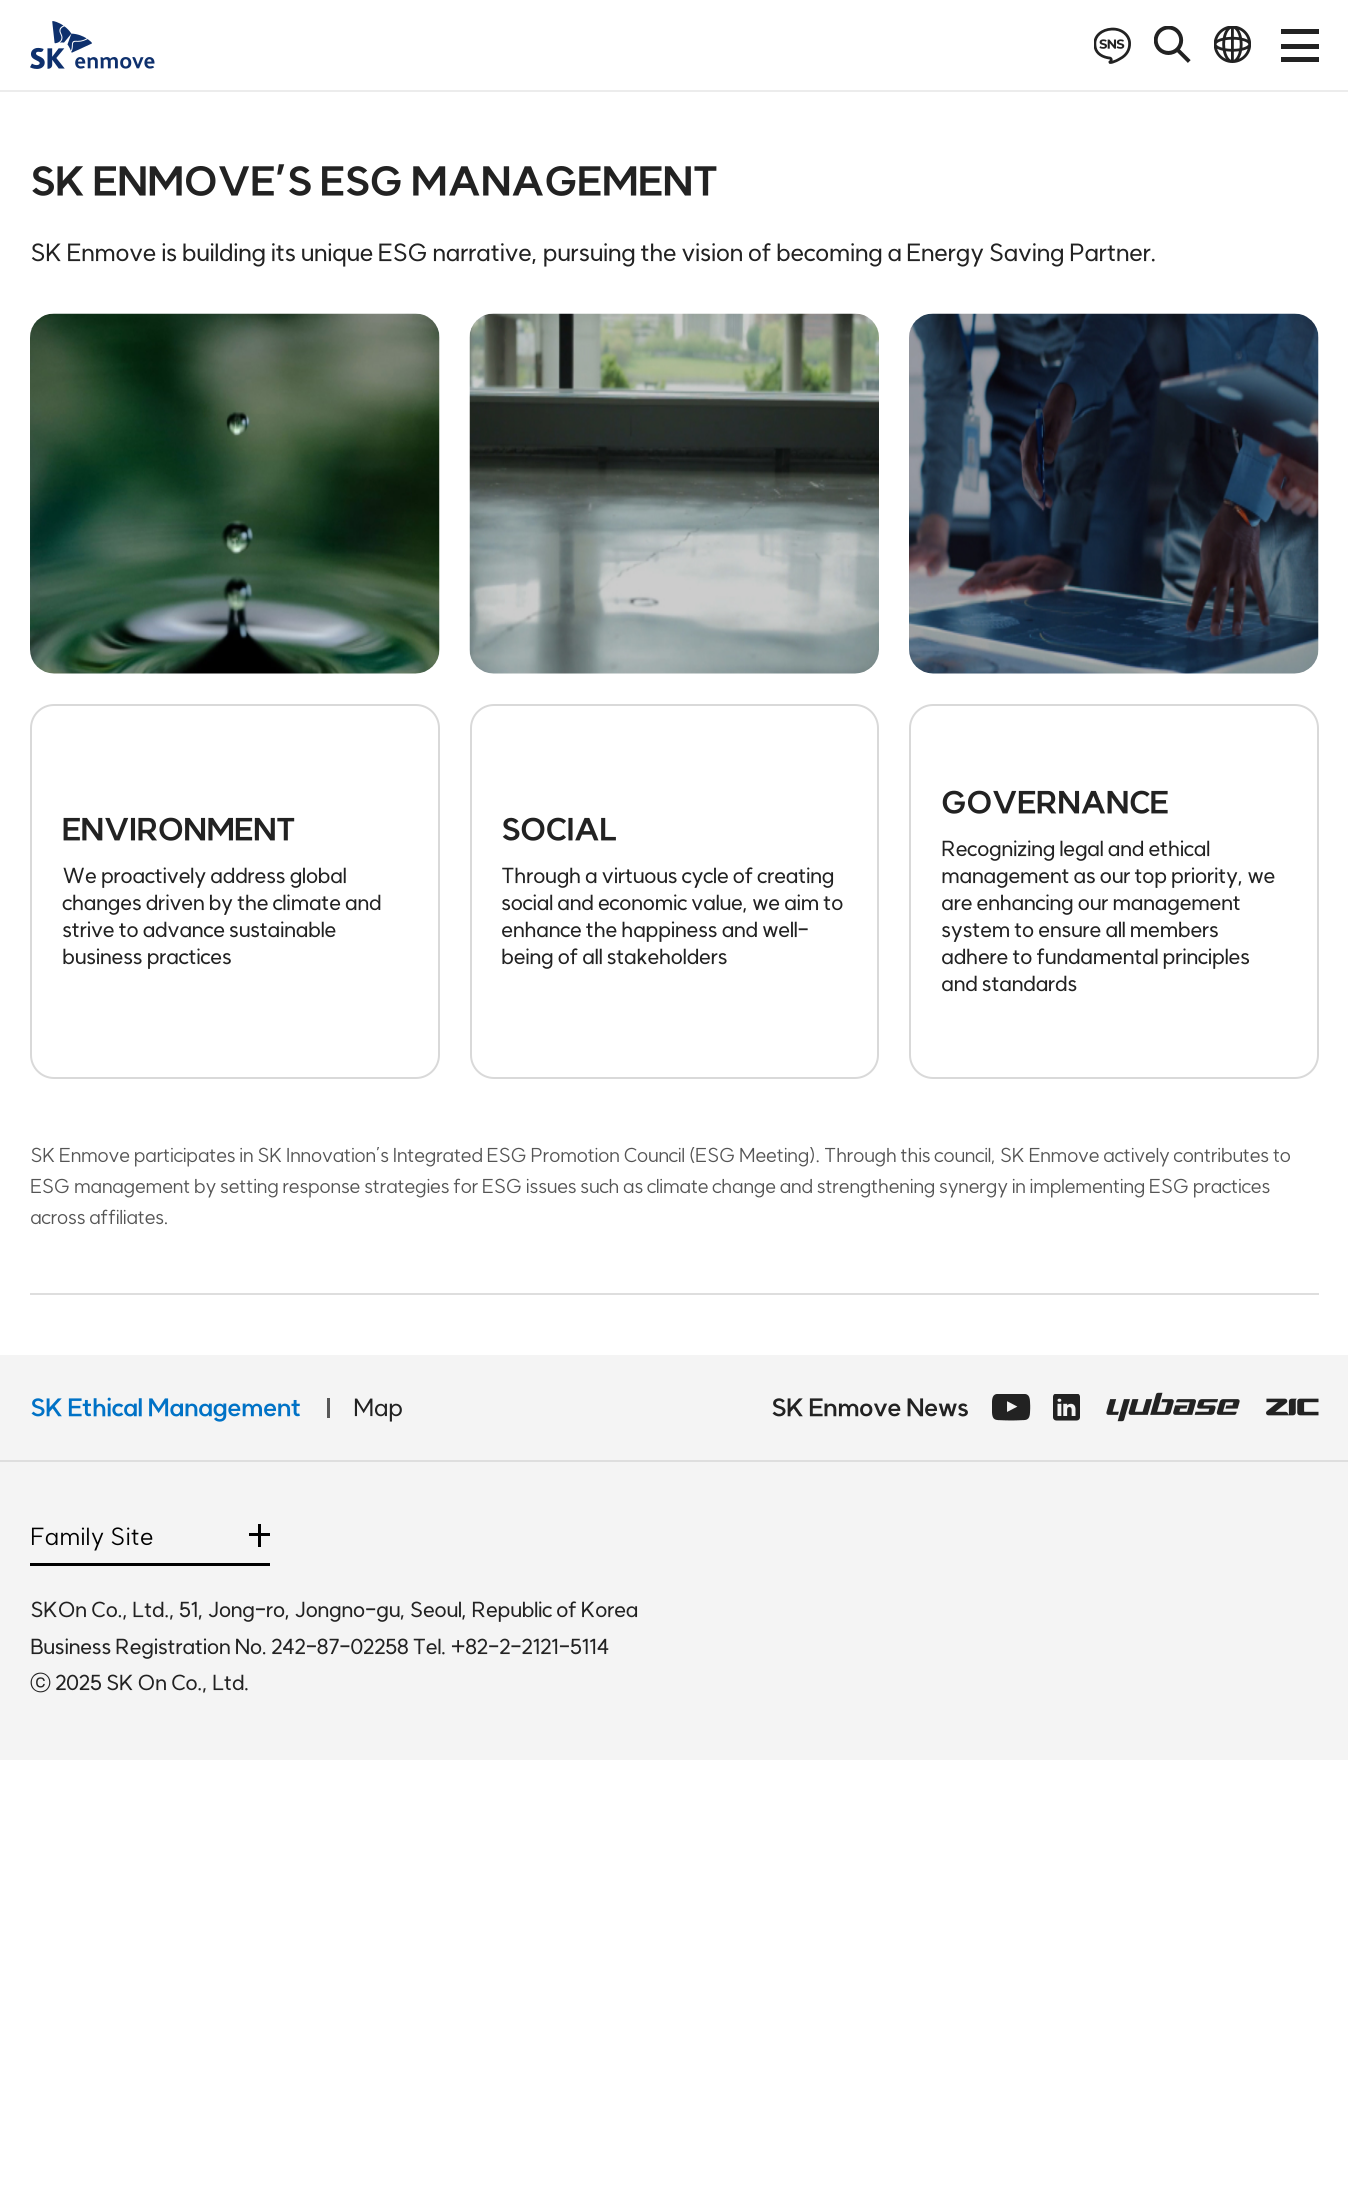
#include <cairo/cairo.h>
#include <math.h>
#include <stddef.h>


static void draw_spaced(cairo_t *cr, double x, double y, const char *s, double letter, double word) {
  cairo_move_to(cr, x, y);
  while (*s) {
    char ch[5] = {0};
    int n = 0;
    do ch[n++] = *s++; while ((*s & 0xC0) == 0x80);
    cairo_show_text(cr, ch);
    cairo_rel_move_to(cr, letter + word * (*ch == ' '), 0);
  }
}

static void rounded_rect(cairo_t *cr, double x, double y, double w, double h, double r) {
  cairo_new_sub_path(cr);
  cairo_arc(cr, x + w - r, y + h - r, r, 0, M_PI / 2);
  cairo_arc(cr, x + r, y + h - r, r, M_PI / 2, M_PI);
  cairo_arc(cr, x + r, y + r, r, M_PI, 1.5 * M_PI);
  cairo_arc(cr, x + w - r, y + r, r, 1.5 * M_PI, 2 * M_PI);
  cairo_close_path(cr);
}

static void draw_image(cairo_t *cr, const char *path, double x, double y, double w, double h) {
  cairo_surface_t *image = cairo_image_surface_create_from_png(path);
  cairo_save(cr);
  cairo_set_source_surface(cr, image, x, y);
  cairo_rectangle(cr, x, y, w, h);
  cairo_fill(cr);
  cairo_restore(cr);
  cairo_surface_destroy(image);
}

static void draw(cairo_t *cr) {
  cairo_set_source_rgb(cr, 1, 1, 1);
  cairo_paint(cr);
  draw_image(cr, "images/1.png", 30, 21, 125, 48);
  draw_image(cr, "images/2.png", 1094, 27, 37, 37);
  draw_image(cr, "images/3.png", 1154, 26, 37, 37);
  draw_image(cr, "images/4.png", 1214, 26, 37, 37);
  cairo_set_source_rgb(cr, 34 / 255.0, 34 / 255.0, 34 / 255.0);
  cairo_rectangle(cr, 1281, 29, 38, 5);
  cairo_fill(cr);
  cairo_rectangle(cr, 1281, 44, 38, 5);
  cairo_fill(cr);
  cairo_rectangle(cr, 1281, 57, 38, 5);
  cairo_fill(cr);
  cairo_set_source_rgb(cr, 236 / 255.0, 236 / 255.0, 236 / 255.0);
  cairo_rectangle(cr, 0, 90, 1348, 2);
  cairo_fill(cr);
  draw_image(cr, "images/5.png", 30, 313, 410, 361);
  rounded_rect(cr, 31, 705, 408, 373, 23);
  cairo_set_source_rgb(cr, 217 / 255.0, 217 / 255.0, 217 / 255.0);
  cairo_stroke(cr);
  draw_image(cr, "images/6.png", 469, 313, 410, 361);
  rounded_rect(cr, 471, 705, 407, 373, 23);
  cairo_stroke(cr);
  draw_image(cr, "images/7.png", 909, 313, 410, 361);
  rounded_rect(cr, 910, 705, 408, 373, 23);
  cairo_stroke(cr);
  cairo_set_source_rgb(cr, 222 / 255.0, 222 / 255.0, 222 / 255.0);
  cairo_rectangle(cr, 30, 1293, 1289, 2);
  cairo_fill(cr);
  cairo_set_source_rgb(cr, 244 / 255.0, 244 / 255.0, 244 / 255.0);
  cairo_rectangle(cr, 0, 1355, 1348, 405);
  cairo_fill(cr);
  cairo_set_source_rgb(cr, 222 / 255.0, 222 / 255.0, 222 / 255.0);
  cairo_rectangle(cr, 0, 1460, 1348, 2);
  cairo_fill(cr);
  cairo_set_source_rgb(cr, 88 / 255.0, 88 / 255.0, 88 / 255.0);
  cairo_rectangle(cr, 327, 1398, 3, 20);
  cairo_fill(cr);
  draw_image(cr, "images/8.png", 992, 1394, 39, 27);
  draw_image(cr, "images/9.png", 1053, 1394, 27, 27);
  draw_image(cr, "images/10.png", 1106, 1392, 134, 30);
  draw_image(cr, "images/11.png", 1266, 1398, 53, 18);
  cairo_set_source_rgb(cr, 0, 0, 0);
  cairo_rectangle(cr, 30, 1563, 240, 3);
  cairo_fill(cr);
  cairo_rectangle(cr, 249, 1533, 21, 3);
  cairo_fill(cr);
  cairo_rectangle(cr, 258, 1524, 3, 23);
  cairo_fill(cr);
  cairo_select_font_face(cr, "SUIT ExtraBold", CAIRO_FONT_SLANT_NORMAL, CAIRO_FONT_WEIGHT_NORMAL);
  cairo_set_font_size(cr, 39);
  cairo_set_source_rgb(cr, 34 / 255.0, 34 / 255.0, 34 / 255.0);
  draw_spaced(cr, 30, 195, "SK ENMOVE’S ESG MANAGEMENT", -0.6, 0);
  cairo_select_font_face(cr, "SUIT Medium", CAIRO_FONT_SLANT_NORMAL, CAIRO_FONT_WEIGHT_NORMAL);
  cairo_set_font_size(cr, 24);
  draw_spaced(cr, 30, 261, "SK Enmove is building its unique ESG narrative, pursuing the vision of becoming a Energy Saving Partner.", -0.6, 0);
  cairo_select_font_face(cr, "SUIT ExtraBold", CAIRO_FONT_SLANT_NORMAL, CAIRO_FONT_WEIGHT_NORMAL);
  cairo_set_font_size(cr, 30);
  draw_spaced(cr, 62, 840, "ENVIRONMENT", -0.6, 0);
  cairo_select_font_face(cr, "SUIT Medium", CAIRO_FONT_SLANT_NORMAL, CAIRO_FONT_WEIGHT_NORMAL);
  cairo_set_font_size(cr, 21);
  draw_spaced(cr, 62, 883, "We proactively address global", -0.6, 0);
  draw_spaced(cr, 62, 910, "changes driven by the climate and", -0.6, 0);
  draw_spaced(cr, 62, 937, "strive to advance sustainable", -0.6, 0);
  draw_spaced(cr, 62, 964, "business practices", -0.6, 0);
  cairo_select_font_face(cr, "SUIT ExtraBold", CAIRO_FONT_SLANT_NORMAL, CAIRO_FONT_WEIGHT_NORMAL);
  cairo_set_font_size(cr, 30);
  draw_spaced(cr, 501, 840, "SOCIAL", -0.6, 0);
  cairo_select_font_face(cr, "SUIT Medium", CAIRO_FONT_SLANT_NORMAL, CAIRO_FONT_WEIGHT_NORMAL);
  cairo_set_font_size(cr, 21);
  draw_spaced(cr, 501, 883, "Through a virtuous cycle of creating", -0.6, 0);
  draw_spaced(cr, 501, 910, "social and economic value, we aim to", -0.6, 0);
  draw_spaced(cr, 501, 937, "enhance the happiness and well-", -0.6, 0);
  draw_spaced(cr, 501, 964, "being of all stakeholders", -0.6, 0);
  cairo_select_font_face(cr, "SUIT ExtraBold", CAIRO_FONT_SLANT_NORMAL, CAIRO_FONT_WEIGHT_NORMAL);
  cairo_set_font_size(cr, 30);
  draw_spaced(cr, 941, 813, "GOVERNANCE", -0.6, 0);
  cairo_select_font_face(cr, "SUIT Medium", CAIRO_FONT_SLANT_NORMAL, CAIRO_FONT_WEIGHT_NORMAL);
  cairo_set_font_size(cr, 21);
  draw_spaced(cr, 941, 856, "Recognizing legal and ethical", -0.6, 0);
  draw_spaced(cr, 941, 883, "management as our top priority, we", -0.6, 0);
  draw_spaced(cr, 941, 910, "are enhancing our management", -0.6, 0);
  draw_spaced(cr, 941, 937, "system to ensure all members", -0.6, 0);
  draw_spaced(cr, 941, 964, "adhere to fundamental principles", -0.6, 0);
  draw_spaced(cr, 941, 991, "and standards", -0.6, 0);
  cairo_select_font_face(cr, "SUIT", CAIRO_FONT_SLANT_NORMAL, CAIRO_FONT_WEIGHT_NORMAL);
  cairo_set_font_size(cr, 19.5);
  cairo_set_source_rgb(cr, 85 / 255.0, 85 / 255.0, 85 / 255.0);
  draw_spaced(cr, 30, 1162, "SK Enmove participates in SK Innovation’s Integrated ESG Promotion Council (ESG Meeting). Through this council, SK Enmove actively contributes to", -0.6, 0);
  draw_spaced(cr, 30, 1193, "ESG management by setting response strategies for ESG issues such as climate change and strengthening synergy in implementing ESG practices", -0.6, 0);
  draw_spaced(cr, 30, 1224, "across affiliates.", -0.6, 0);
  cairo_select_font_face(cr, "SUIT", CAIRO_FONT_SLANT_NORMAL, CAIRO_FONT_WEIGHT_BOLD);
  cairo_set_font_size(cr, 24);
  cairo_set_source_rgb(cr, 0, 114 / 255.0, 198 / 255.0);
  draw_spaced(cr, 30, 1416, "SK Ethical Management", -0.6, 0);
  cairo_select_font_face(cr, "SUIT Medium", CAIRO_FONT_SLANT_NORMAL, CAIRO_FONT_WEIGHT_NORMAL);
  cairo_set_source_rgb(cr, 34 / 255.0, 34 / 255.0, 34 / 255.0);
  draw_spaced(cr, 353, 1416, "Map", -0.6, 0);
  cairo_select_font_face(cr, "SUIT", CAIRO_FONT_SLANT_NORMAL, CAIRO_FONT_WEIGHT_BOLD);
  draw_spaced(cr, 771, 1416, "SK Enmove News", -0.6, 0);
  cairo_select_font_face(cr, "SUIT", CAIRO_FONT_SLANT_NORMAL, CAIRO_FONT_WEIGHT_NORMAL);
  cairo_set_source_rgb(cr, 0, 0, 0);
  cairo_move_to(cr, 30, 1545);
  cairo_show_text(cr, "Family Site");
  cairo_select_font_face(cr, "SUIT Medium", CAIRO_FONT_SLANT_NORMAL, CAIRO_FONT_WEIGHT_NORMAL);
  cairo_set_font_size(cr, 21);
  cairo_set_source_rgb(cr, 34 / 255.0, 34 / 255.0, 34 / 255.0);
  draw_spaced(cr, 30, 1617, "SKOn Co., Ltd., 51, Jong-ro, Jongno-gu, Seoul, Republic of Korea", -0.6, 0);
  draw_spaced(cr, 30, 1654, "Business Registration No. 242-87-02258 Tel. +82-2-2121-5114", -0.6, 0);
  cairo_select_font_face(cr, "WenQuanYi Zen Hei Medium", CAIRO_FONT_SLANT_NORMAL, CAIRO_FONT_WEIGHT_NORMAL);
  draw_spaced(cr, 30, 1690, "ⓒ", -0.6, 0);
  cairo_select_font_face(cr, "SUIT Medium", CAIRO_FONT_SLANT_NORMAL, CAIRO_FONT_WEIGHT_NORMAL);
  draw_spaced(cr, 55, 1690, "2025 SK On Co., Ltd.", -0.6, 0);
}

int main(void) {
  cairo_surface_t *surface = cairo_image_surface_create(CAIRO_FORMAT_RGB24, 1348, 2193);
  cairo_t *cr = cairo_create(surface);
  cairo_font_options_t *options = cairo_font_options_create();
  cairo_font_options_set_hint_metrics(options, CAIRO_HINT_METRICS_OFF);
  cairo_font_options_set_hint_style(options, CAIRO_HINT_STYLE_NONE);
  cairo_set_font_options(cr, options);
  cairo_set_miter_limit(cr, 4);
  draw(cr);
  cairo_surface_write_to_png(surface, "out.png");
  cairo_font_options_destroy(options);
  cairo_destroy(cr);
  cairo_surface_destroy(surface);
  return 0;
}
